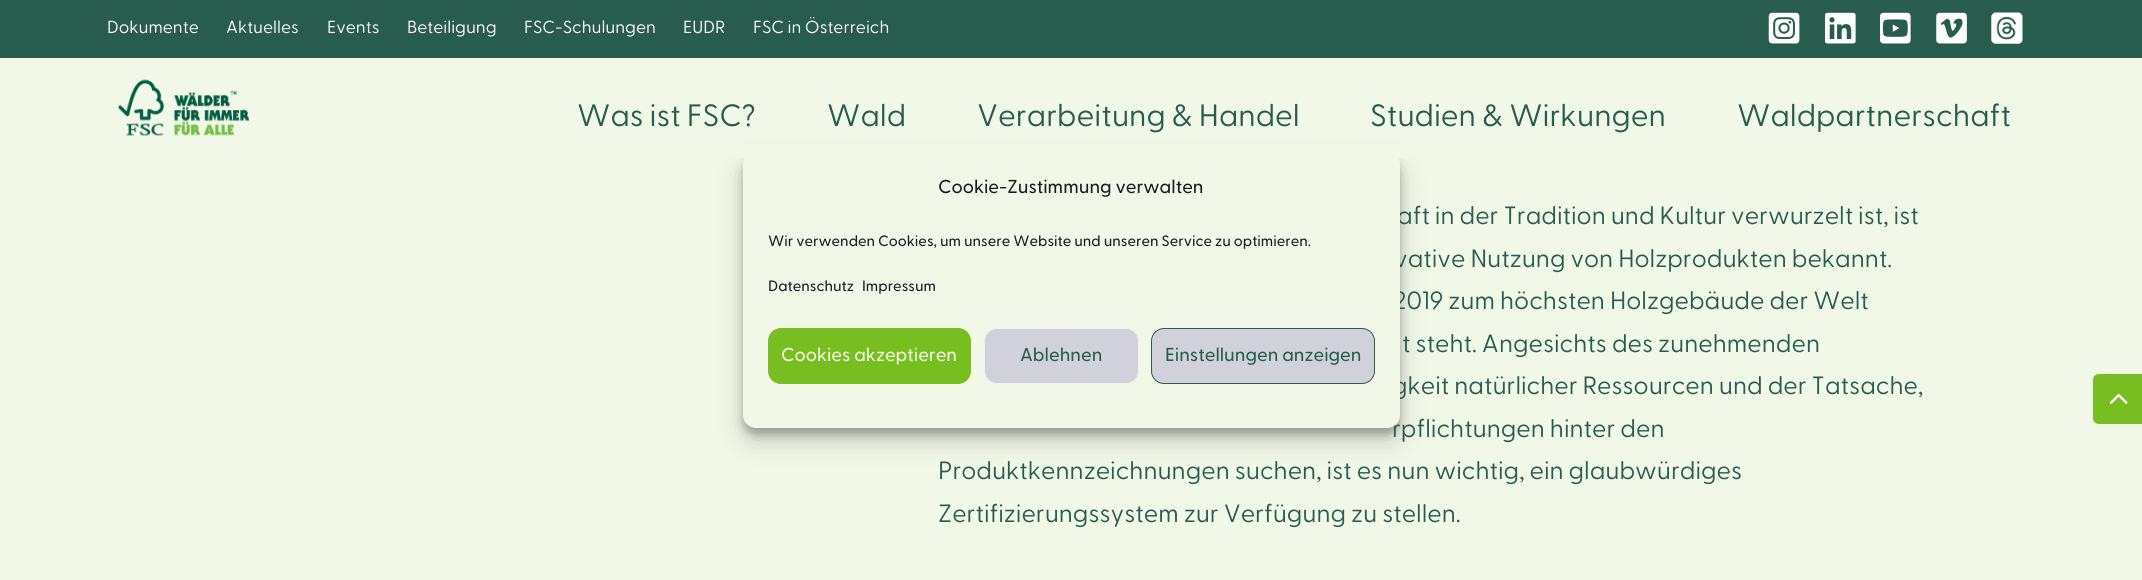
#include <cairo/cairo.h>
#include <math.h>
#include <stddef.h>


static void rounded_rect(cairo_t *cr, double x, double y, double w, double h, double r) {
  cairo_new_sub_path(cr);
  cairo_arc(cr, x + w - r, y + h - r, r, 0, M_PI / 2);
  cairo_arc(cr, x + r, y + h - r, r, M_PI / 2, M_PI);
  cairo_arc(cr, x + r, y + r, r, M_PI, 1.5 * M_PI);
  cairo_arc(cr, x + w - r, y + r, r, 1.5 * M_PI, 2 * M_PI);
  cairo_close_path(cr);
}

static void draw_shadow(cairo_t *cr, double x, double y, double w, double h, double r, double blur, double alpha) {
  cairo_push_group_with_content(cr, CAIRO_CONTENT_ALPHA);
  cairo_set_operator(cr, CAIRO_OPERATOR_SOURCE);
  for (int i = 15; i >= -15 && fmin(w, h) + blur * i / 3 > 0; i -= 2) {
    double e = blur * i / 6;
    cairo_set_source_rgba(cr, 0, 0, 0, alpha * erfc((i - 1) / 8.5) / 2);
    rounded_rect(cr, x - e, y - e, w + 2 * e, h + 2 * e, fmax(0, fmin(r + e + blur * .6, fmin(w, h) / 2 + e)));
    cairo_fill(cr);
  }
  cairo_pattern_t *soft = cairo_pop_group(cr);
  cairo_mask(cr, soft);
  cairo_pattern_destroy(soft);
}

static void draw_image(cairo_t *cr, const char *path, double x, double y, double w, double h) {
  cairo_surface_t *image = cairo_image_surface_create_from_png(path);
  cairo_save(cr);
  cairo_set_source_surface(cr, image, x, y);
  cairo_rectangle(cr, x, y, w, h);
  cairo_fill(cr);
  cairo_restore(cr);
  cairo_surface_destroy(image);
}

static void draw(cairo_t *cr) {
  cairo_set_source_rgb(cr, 241 / 255.0, 248 / 255.0, 232 / 255.0);
  cairo_paint(cr);
  cairo_set_source_rgb(cr, 40 / 255.0, 92 / 255.0, 77 / 255.0);
  cairo_rectangle(cr, 0, 0, 2142, 58);
  cairo_fill(cr);
  draw_image(cr, "images/1.png", 1768, 12, 32, 32);
  draw_image(cr, "images/2.png", 1825, 12, 31, 32);
  draw_image(cr, "images/3.png", 1880, 12, 31, 32);
  draw_image(cr, "images/4.png", 1936, 12, 31, 32);
  draw_image(cr, "images/5.png", 1991, 12, 32, 32);
  draw_image(cr, "images/6.png", 118, 79, 132, 57);
  cairo_set_source_rgb(cr, 0, 0, 0);
  draw_shadow(cr, 743, 159, 657, 276, 13, 4, 0.23);
  draw_shadow(cr, 743, 164, 657, 276, 13, 12.5, 0.19);
  cairo_set_source_rgb(cr, 120 / 255.0, 190 / 255.0, 32 / 255.0);
  cairo_new_path(cr);
  cairo_move_to(cr, 2099, 374);
  cairo_line_to(cr, 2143, 374);
  cairo_line_to(cr, 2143, 424);
  cairo_line_to(cr, 2099, 424);
  cairo_curve_to(cr, 2095.5, 424, 2093, 421.5, 2093, 418);
  cairo_line_to(cr, 2093, 380);
  cairo_curve_to(cr, 2093, 376.5, 2095.5, 374, 2099, 374);
  cairo_close_path(cr);
  cairo_fill(cr);
  draw_image(cr, "images/7.png", 2109, 393, 19, 11);
  cairo_select_font_face(cr, "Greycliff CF", CAIRO_FONT_SLANT_NORMAL, CAIRO_FONT_WEIGHT_NORMAL);
  cairo_set_font_size(cr, 17.5);
  cairo_set_source_rgb(cr, 1, 1, 1);
  cairo_move_to(cr, 107, 33);
  cairo_show_text(cr, "Dokumente");
  cairo_move_to(cr, 226, 33);
  cairo_show_text(cr, "Aktuelles");
  cairo_move_to(cr, 327, 33);
  cairo_show_text(cr, "Events");
  cairo_move_to(cr, 407, 33);
  cairo_show_text(cr, "Beteiligung");
  cairo_move_to(cr, 524, 33);
  cairo_show_text(cr, "FSC-Schulungen");
  cairo_move_to(cr, 683, 33);
  cairo_show_text(cr, "EUDR");
  cairo_move_to(cr, 753, 33);
  cairo_show_text(cr, "FSC in Österreich");
  cairo_set_font_size(cr, 30.9);
  cairo_set_source_rgb(cr, 40 / 255.0, 92 / 255.0, 77 / 255.0);
  cairo_move_to(cr, 577, 126);
  cairo_show_text(cr, "Was ist FSC?");
  cairo_move_to(cr, 827, 126);
  cairo_show_text(cr, "Wald");
  cairo_move_to(cr, 977, 126);
  cairo_show_text(cr, "Verarbeitung & Handel");
  cairo_move_to(cr, 1370, 126);
  cairo_show_text(cr, "Studien & Wirkungen");
  cairo_move_to(cr, 1737, 126);
  cairo_show_text(cr, "Waldpartnerschaft");
  cairo_set_font_size(cr, 25);
  cairo_move_to(cr, 1397, 224);
  cairo_show_text(cr, "aft in der Tradition und Kultur verwurzelt ist, ist");
  cairo_move_to(cr, 1394, 267);
  cairo_show_text(cr, "vative Nutzung von Holzprodukten bekannt.");
  cairo_move_to(cr, 1394, 309);
  cairo_show_text(cr, "2019 zum höchsten Holzgebäude der Welt");
  cairo_move_to(cr, 1402, 352);
  cairo_show_text(cr, "t steht. Angesichts des zunehmenden");
  cairo_move_to(cr, 1392, 394);
  cairo_show_text(cr, "gkeit natürlicher Ressourcen und der Tatsache,");
  cairo_move_to(cr, 1392, 437);
  cairo_show_text(cr, "rpflichtungen hinter den");
  cairo_move_to(cr, 938, 479);
  cairo_show_text(cr, "Produktkennzeichnungen suchen, ist es nun wichtig, ein glaubwürdiges");
  cairo_move_to(cr, 938, 522);
  cairo_show_text(cr, "Zertifizierungssystem zur Verfügung zu stellen.");
  cairo_set_source_rgb(cr, 241 / 255.0, 248 / 255.0, 232 / 255.0);
  rounded_rect(cr, 743, 151, 657, 277, 13);
  cairo_fill(cr);
  cairo_rectangle(cr, 734, 144, 675, 14);
  cairo_fill(cr);
  cairo_select_font_face(cr, "Greycliff CF Medium", CAIRO_FONT_SLANT_NORMAL, CAIRO_FONT_WEIGHT_NORMAL);
  cairo_set_font_size(cr, 18.75);
  cairo_set_source_rgb(cr, 25 / 255.0, 30 / 255.0, 35 / 255.0);
  cairo_move_to(cr, 938, 193);
  cairo_show_text(cr, "Cookie-Zustimmung verwalten");
  cairo_set_font_size(cr, 15);
  cairo_move_to(cr, 768, 246);
  cairo_show_text(cr, "Wir verwenden Cookies, um unsere Website und unseren Service zu optimieren.");
  cairo_move_to(cr, 768, 291);
  cairo_show_text(cr, "Datenschutz");
  cairo_move_to(cr, 862, 291);
  cairo_show_text(cr, "Impressum");
  cairo_set_source_rgb(cr, 120 / 255.0, 190 / 255.0, 32 / 255.0);
  rounded_rect(cr, 768.5, 328.5, 202, 55, 12.5);
  cairo_fill_preserve(cr);
  cairo_set_line_width(cr, 1);
  cairo_stroke(cr);
  cairo_set_font_size(cr, 18.75);
  cairo_set_source_rgb(cr, 241 / 255.0, 248 / 255.0, 232 / 255.0);
  cairo_move_to(cr, 781, 361);
  cairo_show_text(cr, "Cookies akzeptieren");
  cairo_set_source_rgb(cr, 208 / 255.0, 209 / 255.0, 219 / 255.0);
  rounded_rect(cr, 984.5, 328.5, 154, 55, 12.5);
  cairo_fill_preserve(cr);
  cairo_set_source_rgb(cr, 241 / 255.0, 241 / 255.0, 241 / 255.0);
  cairo_stroke(cr);
  cairo_set_source_rgb(cr, 40 / 255.0, 92 / 255.0, 77 / 255.0);
  cairo_move_to(cr, 1020, 361);
  cairo_show_text(cr, "Ablehnen");
  cairo_set_source_rgb(cr, 208 / 255.0, 209 / 255.0, 219 / 255.0);
  rounded_rect(cr, 1151.5, 328.5, 223, 55, 12.5);
  cairo_fill_preserve(cr);
  cairo_set_source_rgb(cr, 40 / 255.0, 92 / 255.0, 77 / 255.0);
  cairo_stroke(cr);
  cairo_move_to(cr, 1165, 361);
  cairo_show_text(cr, "Einstellungen anzeigen");
}

int main(void) {
  cairo_surface_t *surface = cairo_image_surface_create(CAIRO_FORMAT_RGB24, 2142, 580);
  cairo_t *cr = cairo_create(surface);
  cairo_font_options_t *options = cairo_font_options_create();
  cairo_font_options_set_hint_metrics(options, CAIRO_HINT_METRICS_OFF);
  cairo_font_options_set_hint_style(options, CAIRO_HINT_STYLE_NONE);
  cairo_set_font_options(cr, options);
  cairo_set_miter_limit(cr, 4);
  draw(cr);
  cairo_surface_write_to_png(surface, "out.png");
  cairo_font_options_destroy(options);
  cairo_destroy(cr);
  cairo_surface_destroy(surface);
  return 0;
}
